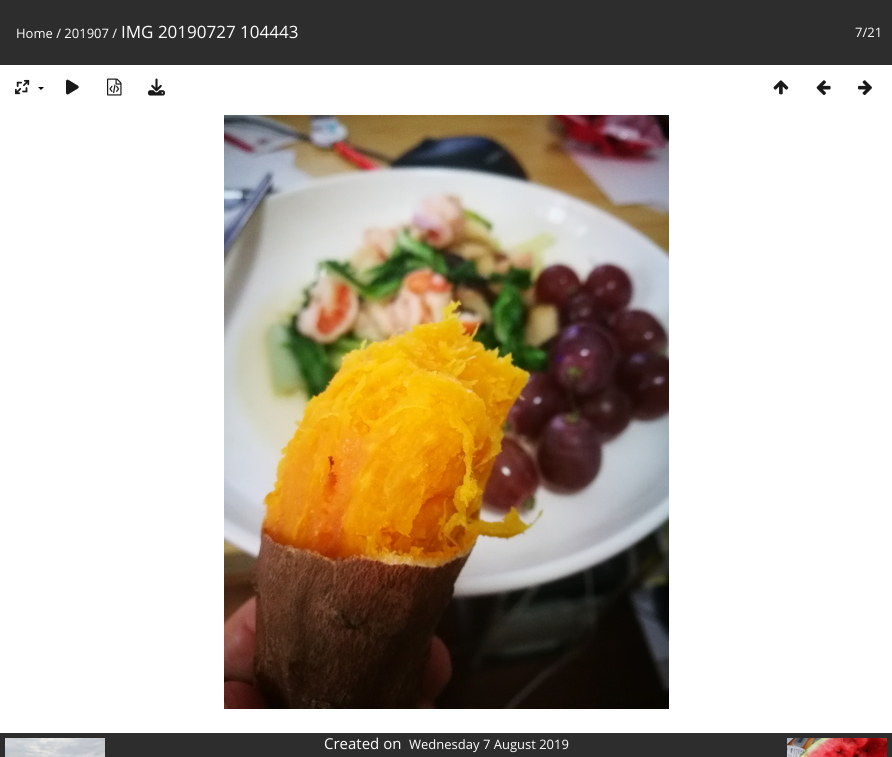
#include <cairo/cairo.h>
#include <math.h>
#include <stddef.h>


static void draw_image(cairo_t *cr, const char *path, double x, double y, double w, double h) {
  cairo_surface_t *image = cairo_image_surface_create_from_png(path);
  cairo_save(cr);
  cairo_set_source_surface(cr, image, x, y);
  cairo_rectangle(cr, x, y, w, h);
  cairo_fill(cr);
  cairo_restore(cr);
  cairo_surface_destroy(image);
}

static void draw(cairo_t *cr) {
  cairo_set_source_rgb(cr, 1, 1, 1);
  cairo_paint(cr);
  cairo_set_source_rgb(cr, 45 / 255.0, 45 / 255.0, 45 / 255.0);
  cairo_rectangle(cr, 0, 0, 892, 65);
  cairo_fill(cr);
  draw_image(cr, "images/1.png", 15, 79, 15, 16);
  cairo_set_source_rgb(cr, 0, 0, 0);
  cairo_new_path(cr);
  cairo_move_to(cr, 38, 87);
  cairo_line_to(cr, 44, 87);
  cairo_line_to(cr, 41, 90);
  cairo_close_path(cr);
  cairo_fill(cr);
  draw_image(cr, "images/2.png", 66, 79, 13, 16);
  draw_image(cr, "images/3.png", 107, 78, 15, 18);
  draw_image(cr, "images/4.png", 148, 78, 17, 18);
  draw_image(cr, "images/5.png", 773, 80, 16, 15);
  draw_image(cr, "images/6.png", 816, 80, 15, 15);
  draw_image(cr, "images/7.png", 858, 80, 14, 15);
  draw_image(cr, "images/8.png", 224, 115, 445, 594);
  cairo_set_source_rgb(cr, 45 / 255.0, 45 / 255.0, 45 / 255.0);
  cairo_rectangle(cr, 0, 733, 892, 24);
  cairo_fill(cr);
  draw_image(cr, "images/9.png", 5, 738, 100, 19);
  draw_image(cr, "images/10.png", 787, 738, 100, 19);
  cairo_select_font_face(cr, "Open Sans", CAIRO_FONT_SLANT_NORMAL, CAIRO_FONT_WEIGHT_NORMAL);
  cairo_set_font_size(cr, 13);
  cairo_set_source_rgb(cr, 1, 1, 1);
  cairo_move_to(cr, 16, 38);
  cairo_show_text(cr, "Home / 201907 /");
  cairo_set_font_size(cr, 17);
  cairo_move_to(cr, 121, 38);
  cairo_show_text(cr, "IMG 20190727 104443");
  cairo_set_font_size(cr, 13);
  cairo_move_to(cr, 855, 37);
  cairo_show_text(cr, "7/21");
  cairo_set_font_size(cr, 15);
  cairo_move_to(cr, 324, 749);
  cairo_show_text(cr, "Created on");
  cairo_set_font_size(cr, 13);
  cairo_move_to(cr, 409, 749);
  cairo_show_text(cr, "Wednesday 7 August 2019");
}

int main(void) {
  cairo_surface_t *surface = cairo_image_surface_create(CAIRO_FORMAT_RGB24, 892, 757);
  cairo_t *cr = cairo_create(surface);
  cairo_font_options_t *options = cairo_font_options_create();
  cairo_font_options_set_hint_metrics(options, CAIRO_HINT_METRICS_OFF);
  cairo_font_options_set_hint_style(options, CAIRO_HINT_STYLE_NONE);
  cairo_set_font_options(cr, options);
  cairo_set_miter_limit(cr, 4);
  draw(cr);
  cairo_surface_write_to_png(surface, "out.png");
  cairo_font_options_destroy(options);
  cairo_destroy(cr);
  cairo_surface_destroy(surface);
  return 0;
}
